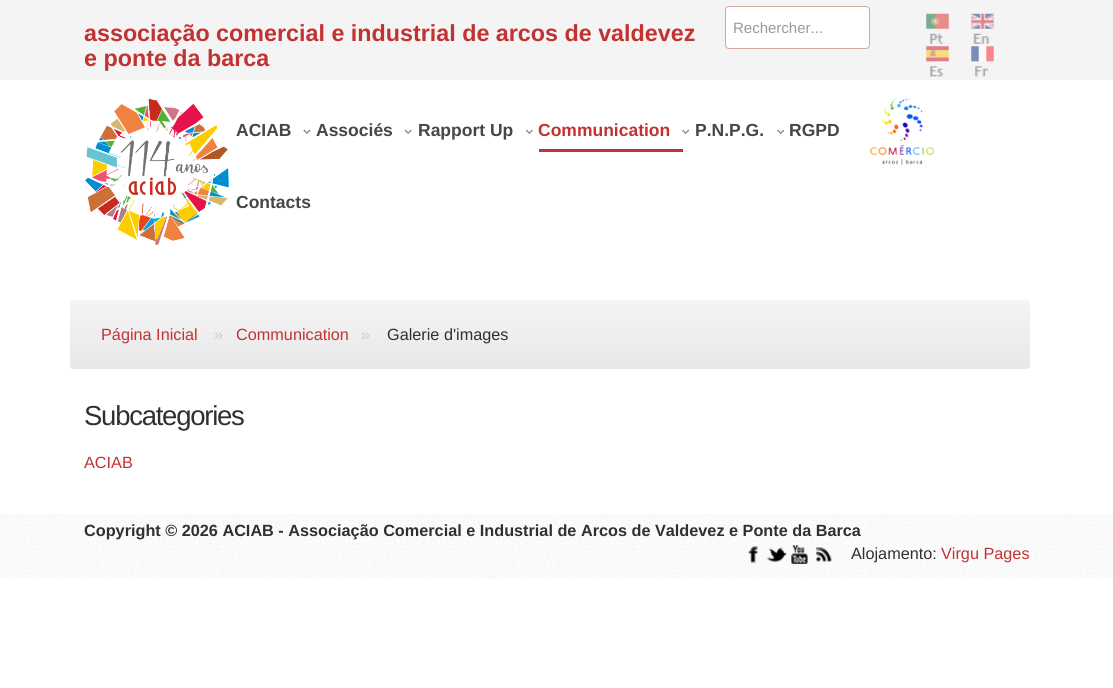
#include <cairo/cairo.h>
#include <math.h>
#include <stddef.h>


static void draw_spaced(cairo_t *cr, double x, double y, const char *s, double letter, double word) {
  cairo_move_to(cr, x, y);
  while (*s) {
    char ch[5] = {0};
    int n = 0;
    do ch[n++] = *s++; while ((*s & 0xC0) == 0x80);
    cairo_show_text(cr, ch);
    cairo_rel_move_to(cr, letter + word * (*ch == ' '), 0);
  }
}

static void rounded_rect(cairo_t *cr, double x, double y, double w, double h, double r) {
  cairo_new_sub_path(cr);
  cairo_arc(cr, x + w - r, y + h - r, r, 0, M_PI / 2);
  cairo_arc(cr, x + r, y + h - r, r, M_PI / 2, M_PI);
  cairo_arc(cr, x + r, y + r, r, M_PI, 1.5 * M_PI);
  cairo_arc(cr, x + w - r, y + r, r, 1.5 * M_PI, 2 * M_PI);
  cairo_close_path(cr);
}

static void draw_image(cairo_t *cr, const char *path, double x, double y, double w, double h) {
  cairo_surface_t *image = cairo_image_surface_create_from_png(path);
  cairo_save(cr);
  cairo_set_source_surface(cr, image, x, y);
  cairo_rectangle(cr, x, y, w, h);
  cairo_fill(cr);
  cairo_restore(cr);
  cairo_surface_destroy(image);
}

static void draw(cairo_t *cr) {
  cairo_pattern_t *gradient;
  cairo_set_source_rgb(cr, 1, 1, 1);
  cairo_paint(cr);
  cairo_set_source_rgb(cr, 244 / 255.0, 244 / 255.0, 244 / 255.0);
  cairo_rectangle(cr, 0, 0, 1113, 80);
  cairo_fill(cr);
  cairo_set_source_rgb(cr, 1, 1, 1);
  rounded_rect(cr, 725, 6, 145, 43, 4);
  cairo_fill(cr);
  rounded_rect(cr, 725.5, 6.5, 144, 42, 3.5);
  cairo_set_source_rgba(cr, 141 / 255.0, 35 / 255.0, 0, 0.39);
  cairo_set_line_width(cr, 1);
  cairo_stroke(cr);
  draw_image(cr, "images/1.png", 926, 13, 23, 31);
  draw_image(cr, "images/2.png", 971, 13, 23, 31);
  draw_image(cr, "images/3.png", 926, 46, 23, 31);
  draw_image(cr, "images/4.png", 971, 46, 23, 31);
  draw_image(cr, "images/5.png", 85, 98, 144, 147);
  draw_image(cr, "images/6.png", 303, 129, 8, 5);
  draw_image(cr, "images/7.png", 405, 129, 7, 5);
  draw_image(cr, "images/8.png", 526, 129, 7, 5);
  cairo_set_source_rgb(cr, 195 / 255.0, 50 / 255.0, 50 / 255.0);
  cairo_rectangle(cr, 539, 149, 144, 3);
  cairo_fill(cr);
  draw_image(cr, "images/9.png", 682, 129, 7, 5);
  draw_image(cr, "images/10.png", 777, 129, 7, 5);
  draw_image(cr, "images/11.png", 870, 98, 64, 67);
  gradient = cairo_pattern_create_linear(550, 300, 550, 369);
  cairo_pattern_add_color_stop_rgba(gradient, 0, 244 / 255.0, 244 / 255.0, 244 / 255.0, 1);
  cairo_pattern_add_color_stop_rgba(gradient, 1, 232 / 255.0, 232 / 255.0, 232 / 255.0, 1);
  cairo_set_source(cr, gradient);
  cairo_pattern_destroy(gradient);
  rounded_rect(cr, 70, 300, 960, 69, 4);
  cairo_fill(cr);
  draw_image(cr, "images/12.png", 0, 514, 1113, 65);
  draw_image(cr, "images/13.png", 748, 546, 10, 17);
  draw_image(cr, "images/14.png", 767, 547, 20, 16);
  draw_image(cr, "images/15.png", 791, 545, 17, 19);
  draw_image(cr, "images/16.png", 816, 547, 16, 15);
  cairo_select_font_face(cr, "Liberation Sans", CAIRO_FONT_SLANT_NORMAL, CAIRO_FONT_WEIGHT_BOLD);
  cairo_set_font_size(cr, 23.3);
  cairo_set_source_rgb(cr, 195 / 255.0, 50 / 255.0, 50 / 255.0);
  cairo_move_to(cr, 84, 41);
  cairo_show_text(cr, "associação comercial e industrial de arcos de valdevez");
  cairo_move_to(cr, 84, 66);
  cairo_show_text(cr, "e ponte da barca");
  cairo_select_font_face(cr, "Liberation Sans", CAIRO_FONT_SLANT_NORMAL, CAIRO_FONT_WEIGHT_NORMAL);
  cairo_set_font_size(cr, 15);
  cairo_set_source_rgb(cr, 153 / 255.0, 153 / 255.0, 153 / 255.0);
  cairo_move_to(cr, 733, 33);
  cairo_show_text(cr, "Rechercher...");
  cairo_select_font_face(cr, "Liberation Sans", CAIRO_FONT_SLANT_NORMAL, CAIRO_FONT_WEIGHT_BOLD);
  cairo_set_font_size(cr, 17.5);
  cairo_set_source_rgb(cr, 70 / 255.0, 70 / 255.0, 70 / 255.0);
  cairo_move_to(cr, 236, 136);
  cairo_show_text(cr, "ACIAB");
  cairo_move_to(cr, 316, 136);
  cairo_show_text(cr, "Associés");
  cairo_move_to(cr, 418, 136);
  cairo_show_text(cr, "Rapport Up");
  cairo_set_source_rgb(cr, 195 / 255.0, 50 / 255.0, 50 / 255.0);
  cairo_move_to(cr, 538, 136);
  cairo_show_text(cr, "Communication");
  cairo_set_source_rgb(cr, 70 / 255.0, 70 / 255.0, 70 / 255.0);
  cairo_move_to(cr, 695, 136);
  cairo_show_text(cr, "P.N.P.G.");
  cairo_move_to(cr, 789, 136);
  cairo_show_text(cr, "RGPD");
  cairo_move_to(cr, 236, 208);
  cairo_show_text(cr, "Contacts");
  cairo_select_font_face(cr, "Liberation Sans", CAIRO_FONT_SLANT_NORMAL, CAIRO_FONT_WEIGHT_NORMAL);
  cairo_set_font_size(cr, 16.25);
  cairo_set_source_rgb(cr, 195 / 255.0, 50 / 255.0, 50 / 255.0);
  cairo_move_to(cr, 101, 340);
  cairo_show_text(cr, "Página Inicial");
  cairo_set_source_rgb(cr, 204 / 255.0, 204 / 255.0, 204 / 255.0);
  cairo_move_to(cr, 214, 340);
  cairo_show_text(cr, "»");
  cairo_set_source_rgb(cr, 195 / 255.0, 50 / 255.0, 50 / 255.0);
  cairo_move_to(cr, 236, 340);
  cairo_show_text(cr, "Communication");
  cairo_set_source_rgb(cr, 204 / 255.0, 204 / 255.0, 204 / 255.0);
  cairo_move_to(cr, 361, 340);
  cairo_show_text(cr, "»");
  cairo_set_source_rgb(cr, 48 / 255.0, 48 / 255.0, 48 / 255.0);
  cairo_move_to(cr, 387, 340);
  cairo_show_text(cr, "Galerie d'images");
  cairo_set_font_size(cr, 27.5);
  draw_spaced(cr, 84, 425, "Subcategories", -1.25, 0);
  cairo_set_font_size(cr, 16.25);
  cairo_set_source_rgb(cr, 195 / 255.0, 50 / 255.0, 50 / 255.0);
  cairo_move_to(cr, 84, 468);
  cairo_show_text(cr, "ACIAB");
  cairo_select_font_face(cr, "Liberation Sans", CAIRO_FONT_SLANT_NORMAL, CAIRO_FONT_WEIGHT_BOLD);
  cairo_set_source_rgb(cr, 48 / 255.0, 48 / 255.0, 48 / 255.0);
  cairo_move_to(cr, 84, 536);
  cairo_show_text(cr, "Copyright © 2026 ACIAB - Associação Comercial e Industrial de Arcos de Valdevez e Ponte da Barca");
  cairo_select_font_face(cr, "Liberation Sans", CAIRO_FONT_SLANT_NORMAL, CAIRO_FONT_WEIGHT_NORMAL);
  cairo_move_to(cr, 851, 559);
  cairo_show_text(cr, "Alojamento:");
  cairo_set_source_rgb(cr, 195 / 255.0, 50 / 255.0, 50 / 255.0);
  cairo_move_to(cr, 941, 559);
  cairo_show_text(cr, "Virgu Pages");
}

int main(void) {
  cairo_surface_t *surface = cairo_image_surface_create(CAIRO_FORMAT_RGB24, 1113, 688);
  cairo_t *cr = cairo_create(surface);
  cairo_font_options_t *options = cairo_font_options_create();
  cairo_font_options_set_hint_metrics(options, CAIRO_HINT_METRICS_OFF);
  cairo_font_options_set_hint_style(options, CAIRO_HINT_STYLE_NONE);
  cairo_set_font_options(cr, options);
  cairo_set_miter_limit(cr, 4);
  draw(cr);
  cairo_surface_write_to_png(surface, "out.png");
  cairo_font_options_destroy(options);
  cairo_destroy(cr);
  cairo_surface_destroy(surface);
  return 0;
}
